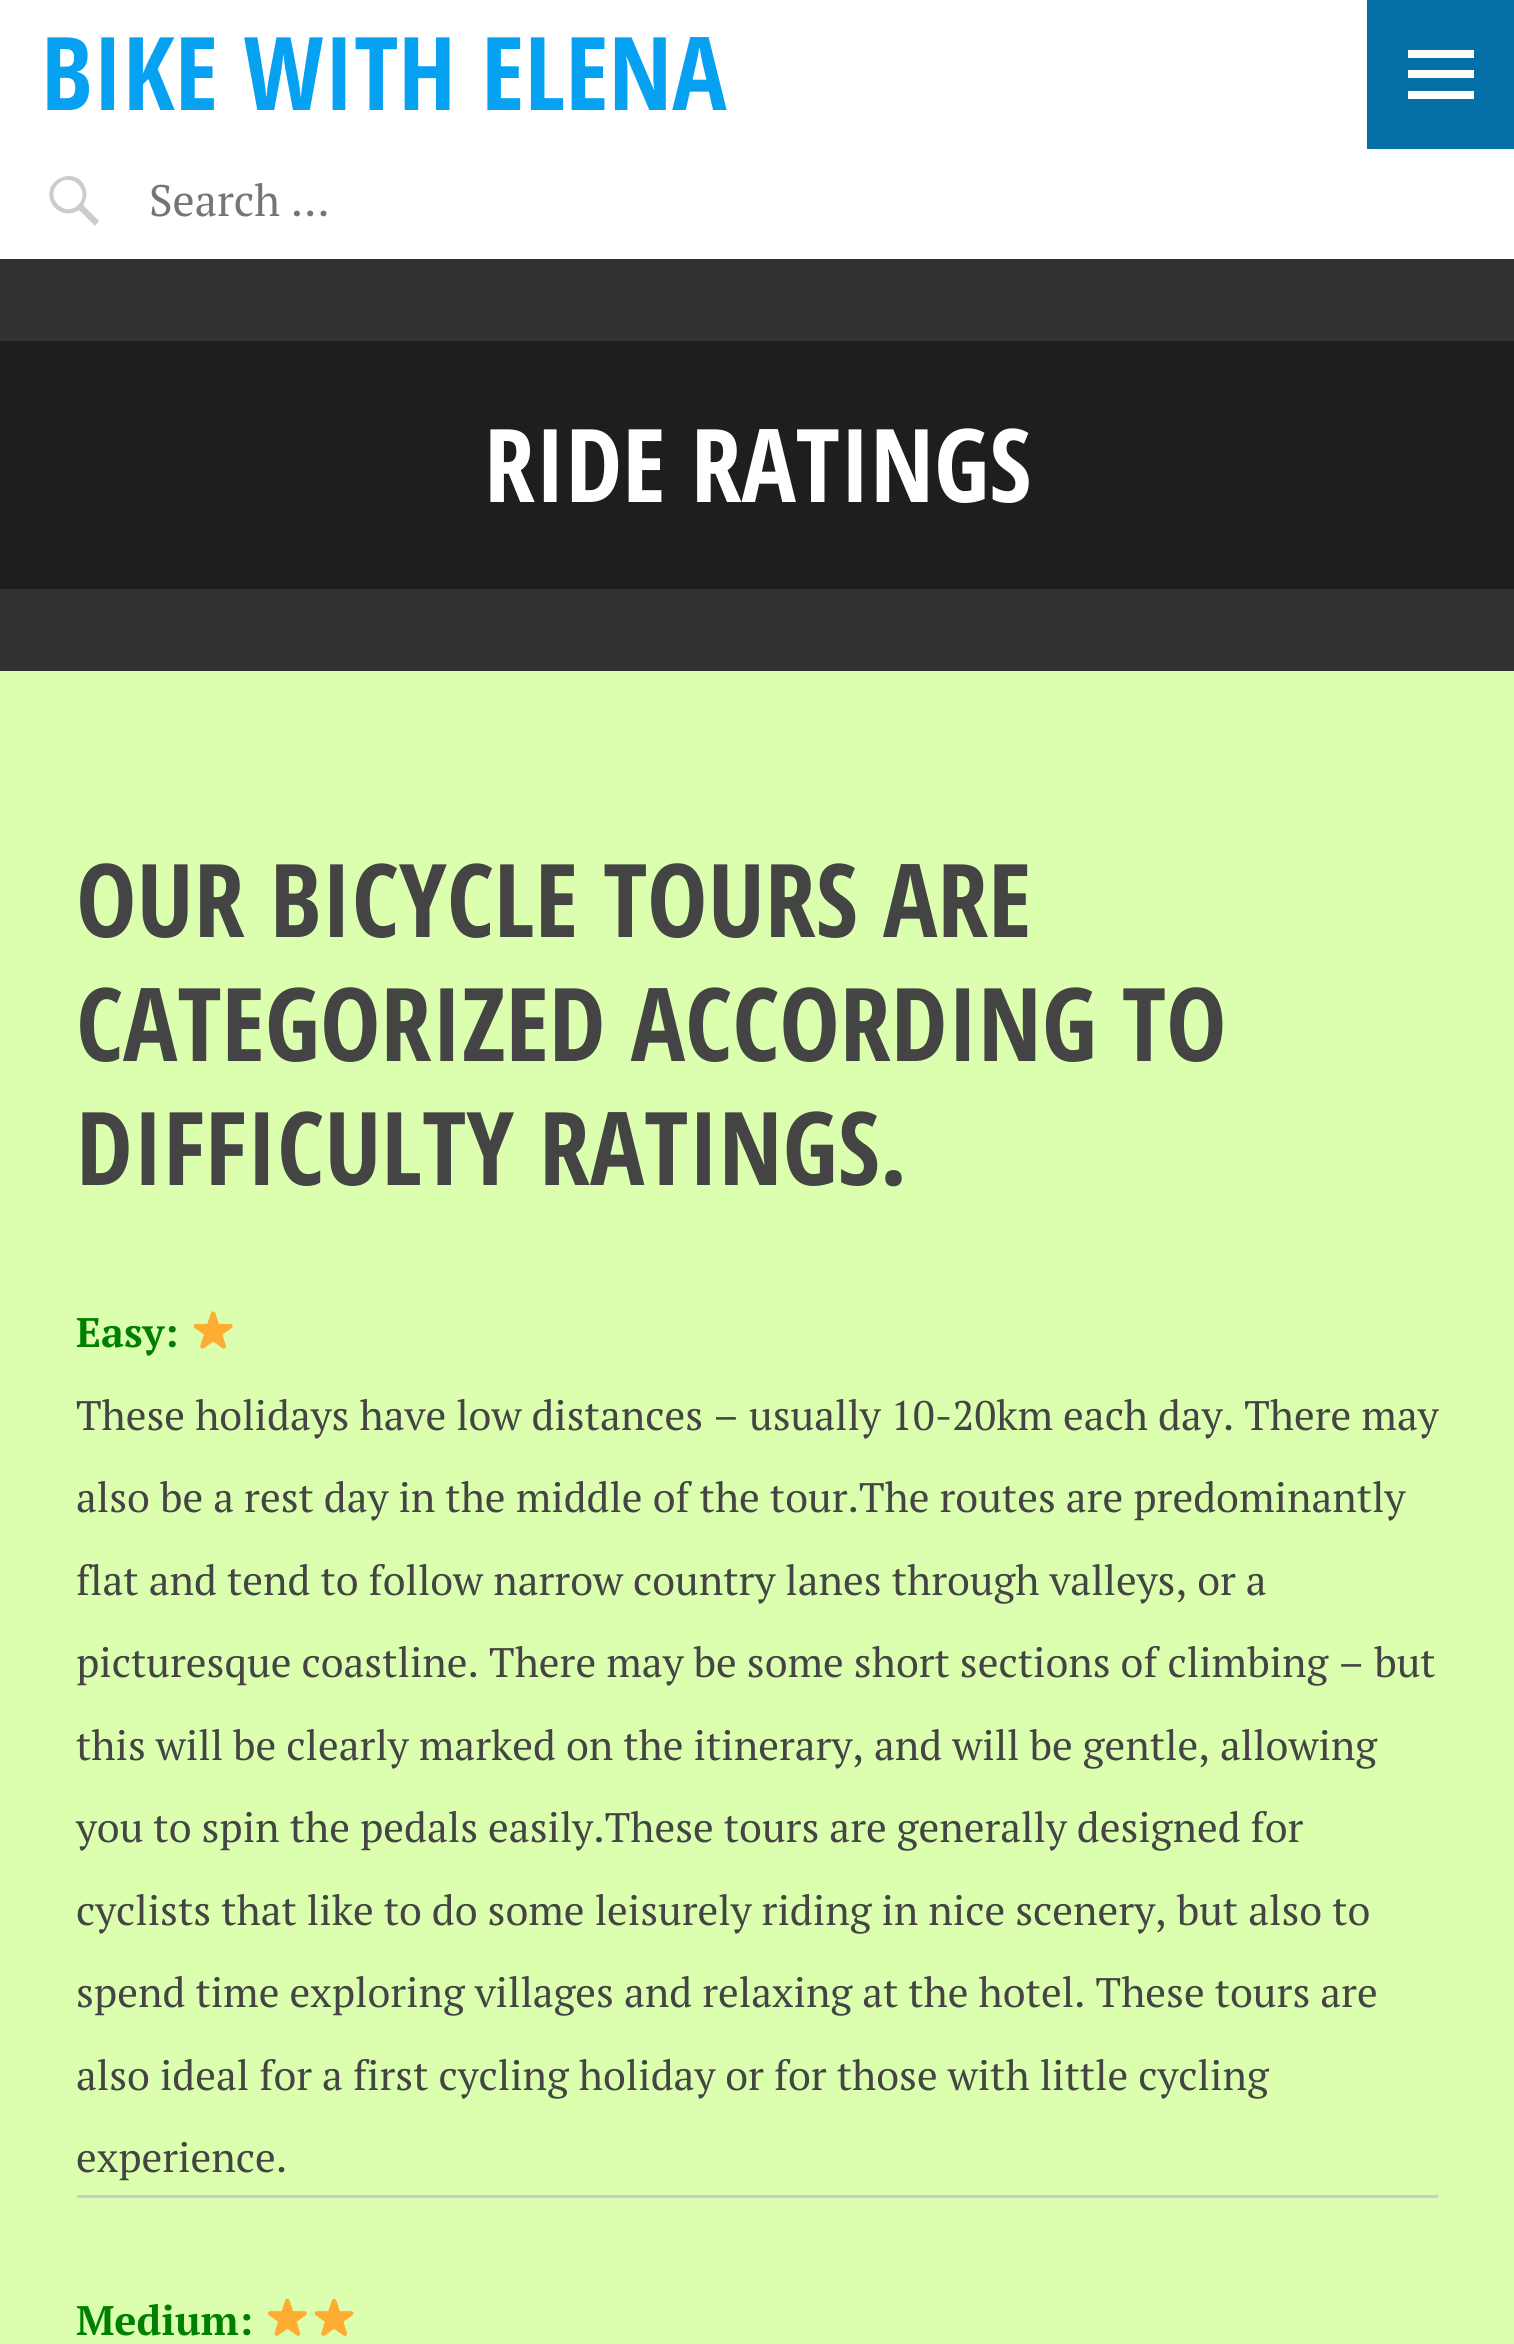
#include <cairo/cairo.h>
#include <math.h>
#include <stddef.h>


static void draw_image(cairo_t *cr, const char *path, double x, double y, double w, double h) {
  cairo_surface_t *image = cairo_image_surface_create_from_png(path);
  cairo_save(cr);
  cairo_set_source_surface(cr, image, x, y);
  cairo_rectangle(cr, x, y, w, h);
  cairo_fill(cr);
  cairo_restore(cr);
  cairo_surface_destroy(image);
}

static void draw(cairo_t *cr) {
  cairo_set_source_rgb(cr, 219 / 255.0, 1, 175 / 255.0);
  cairo_paint(cr);
  cairo_set_source_rgb(cr, 1, 1, 1);
  cairo_rectangle(cr, 0, 0, 1514, 259);
  cairo_fill(cr);
  cairo_set_source_rgb(cr, 5 / 255.0, 112 / 255.0, 168 / 255.0);
  cairo_rectangle(cr, 1367, 0, 147, 149);
  cairo_fill(cr);
  cairo_set_source_rgb(cr, 1, 1, 1);
  cairo_new_path(cr);
  cairo_move_to(cr, 1408, 99);
  cairo_line_to(cr, 1408, 91);
  cairo_line_to(cr, 1474, 91);
  cairo_line_to(cr, 1474, 99);
  cairo_close_path(cr);
  cairo_move_to(cr, 1408, 78);
  cairo_line_to(cr, 1408, 70);
  cairo_line_to(cr, 1474, 70);
  cairo_line_to(cr, 1474, 78);
  cairo_close_path(cr);
  cairo_move_to(cr, 1408, 58);
  cairo_line_to(cr, 1408, 50);
  cairo_line_to(cr, 1474, 50);
  cairo_line_to(cr, 1474, 58);
  cairo_close_path(cr);
  cairo_fill(cr);
  cairo_set_source_rgb(cr, 204 / 255.0, 204 / 255.0, 204 / 255.0);
  cairo_new_path(cr);
  cairo_move_to(cr, 51, 202);
  cairo_curve_to(cr, 41, 178, 79, 164, 86, 190);
  cairo_curve_to(cr, 87, 195, 86, 201, 83, 205);
  cairo_line_to(cr, 99, 221);
  cairo_line_to(cr, 95, 226);
  cairo_line_to(cr, 79, 210);
  cairo_curve_to(cr, 69, 217, 56, 213, 51, 202);
  cairo_close_path(cr);
  cairo_move_to(cr, 58, 184);
  cairo_curve_to(cr, 44, 198, 65, 218, 78, 205);
  cairo_curve_to(cr, 92, 191, 71, 171, 58, 184);
  cairo_close_path(cr);
  cairo_fill(cr);
  cairo_set_source_rgb(cr, 30 / 255.0, 30 / 255.0, 30 / 255.0);
  cairo_rectangle(cr, 0, 341, 1514, 248);
  cairo_fill(cr);
  cairo_set_source_rgb(cr, 50 / 255.0, 50 / 255.0, 50 / 255.0);
  cairo_rectangle(cr, 0, 259, 1514, 82);
  cairo_fill(cr);
  cairo_rectangle(cr, 0, 589, 1514, 82);
  cairo_fill(cr);
  draw_image(cr, "images/1.png", 193, 1311, 40, 38);
  cairo_set_source_rgb(cr, 204 / 255.0, 204 / 255.0, 204 / 255.0);
  cairo_rectangle(cr, 77, 2195, 1361, 3);
  cairo_fill(cr);
  draw_image(cr, "images/2.png", 267, 2298, 40, 38);
  draw_image(cr, "images/3.png", 314, 2298, 40, 38);
  cairo_select_font_face(cr, "Open Sans Condensed", CAIRO_FONT_SLANT_NORMAL, CAIRO_FONT_WEIGHT_BOLD);
  cairo_set_font_size(cr, 101.75);
  cairo_set_source_rgb(cr, 7 / 255.0, 161 / 255.0, 242 / 255.0);
  cairo_move_to(cr, 41, 110);
  cairo_show_text(cr, "BIKE WITH ELENA");
  cairo_select_font_face(cr, "PT Serif", CAIRO_FONT_SLANT_NORMAL, CAIRO_FONT_WEIGHT_NORMAL);
  cairo_set_font_size(cr, 44);
  cairo_set_source_rgb(cr, 117 / 255.0, 117 / 255.0, 117 / 255.0);
  cairo_move_to(cr, 149, 216);
  cairo_show_text(cr, "Search …");
  cairo_select_font_face(cr, "Open Sans Condensed", CAIRO_FONT_SLANT_NORMAL, CAIRO_FONT_WEIGHT_BOLD);
  cairo_set_font_size(cr, 101.75);
  cairo_set_source_rgb(cr, 1, 1, 1);
  cairo_move_to(cr, 484, 502);
  cairo_show_text(cr, "RIDE RATINGS");
  cairo_set_source_rgb(cr, 68 / 255.0, 68 / 255.0, 68 / 255.0);
  cairo_move_to(cr, 76, 937);
  cairo_show_text(cr, "OUR BICYCLE TOURS ARE");
  cairo_move_to(cr, 76, 1061);
  cairo_show_text(cr, "CATEGORIZED ACCORDING TO");
  cairo_move_to(cr, 76, 1185);
  cairo_show_text(cr, "DIFFICULTY RATINGS.");
  cairo_select_font_face(cr, "PT Serif", CAIRO_FONT_SLANT_NORMAL, CAIRO_FONT_WEIGHT_BOLD);
  cairo_set_font_size(cr, 41.25);
  cairo_set_source_rgb(cr, 0, 128 / 255.0, 0);
  cairo_move_to(cr, 76, 1347);
  cairo_show_text(cr, "Easy:");
  cairo_select_font_face(cr, "PT Serif", CAIRO_FONT_SLANT_NORMAL, CAIRO_FONT_WEIGHT_NORMAL);
  cairo_set_source_rgb(cr, 68 / 255.0, 68 / 255.0, 68 / 255.0);
  cairo_move_to(cr, 76, 1430);
  cairo_show_text(cr, "These holidays have low distances – usually 10-20km each day. There may");
  cairo_move_to(cr, 76, 1512);
  cairo_show_text(cr, "also be a rest day in the middle of the tour.The routes are predominantly");
  cairo_move_to(cr, 76, 1595);
  cairo_show_text(cr, "flat and tend to follow narrow country lanes through valleys, or a");
  cairo_move_to(cr, 76, 1677);
  cairo_show_text(cr, "picturesque coastline. There may be some short sections of climbing – but");
  cairo_move_to(cr, 76, 1760);
  cairo_show_text(cr, "this will be clearly marked on the itinerary, and will be gentle, allowing");
  cairo_move_to(cr, 76, 1842);
  cairo_show_text(cr, "you to spin the pedals easily.These tours are generally designed for");
  cairo_move_to(cr, 76, 1925);
  cairo_show_text(cr, "cyclists that like to do some leisurely riding in nice scenery, but also to");
  cairo_move_to(cr, 76, 2007);
  cairo_show_text(cr, "spend time exploring villages and relaxing at the hotel. These tours are");
  cairo_move_to(cr, 76, 2090);
  cairo_show_text(cr, "also ideal for a first cycling holiday or for those with little cycling");
  cairo_move_to(cr, 76, 2172);
  cairo_show_text(cr, "experience.");
  cairo_select_font_face(cr, "PT Serif", CAIRO_FONT_SLANT_NORMAL, CAIRO_FONT_WEIGHT_BOLD);
  cairo_set_source_rgb(cr, 0, 128 / 255.0, 0);
  cairo_move_to(cr, 76, 2335);
  cairo_show_text(cr, "Medium:");
}

int main(void) {
  cairo_surface_t *surface = cairo_image_surface_create(CAIRO_FORMAT_RGB24, 1514, 2344);
  cairo_t *cr = cairo_create(surface);
  cairo_font_options_t *options = cairo_font_options_create();
  cairo_font_options_set_hint_metrics(options, CAIRO_HINT_METRICS_OFF);
  cairo_font_options_set_hint_style(options, CAIRO_HINT_STYLE_NONE);
  cairo_set_font_options(cr, options);
  cairo_set_miter_limit(cr, 4);
  draw(cr);
  cairo_surface_write_to_png(surface, "out.png");
  cairo_font_options_destroy(options);
  cairo_destroy(cr);
  cairo_surface_destroy(surface);
  return 0;
}
